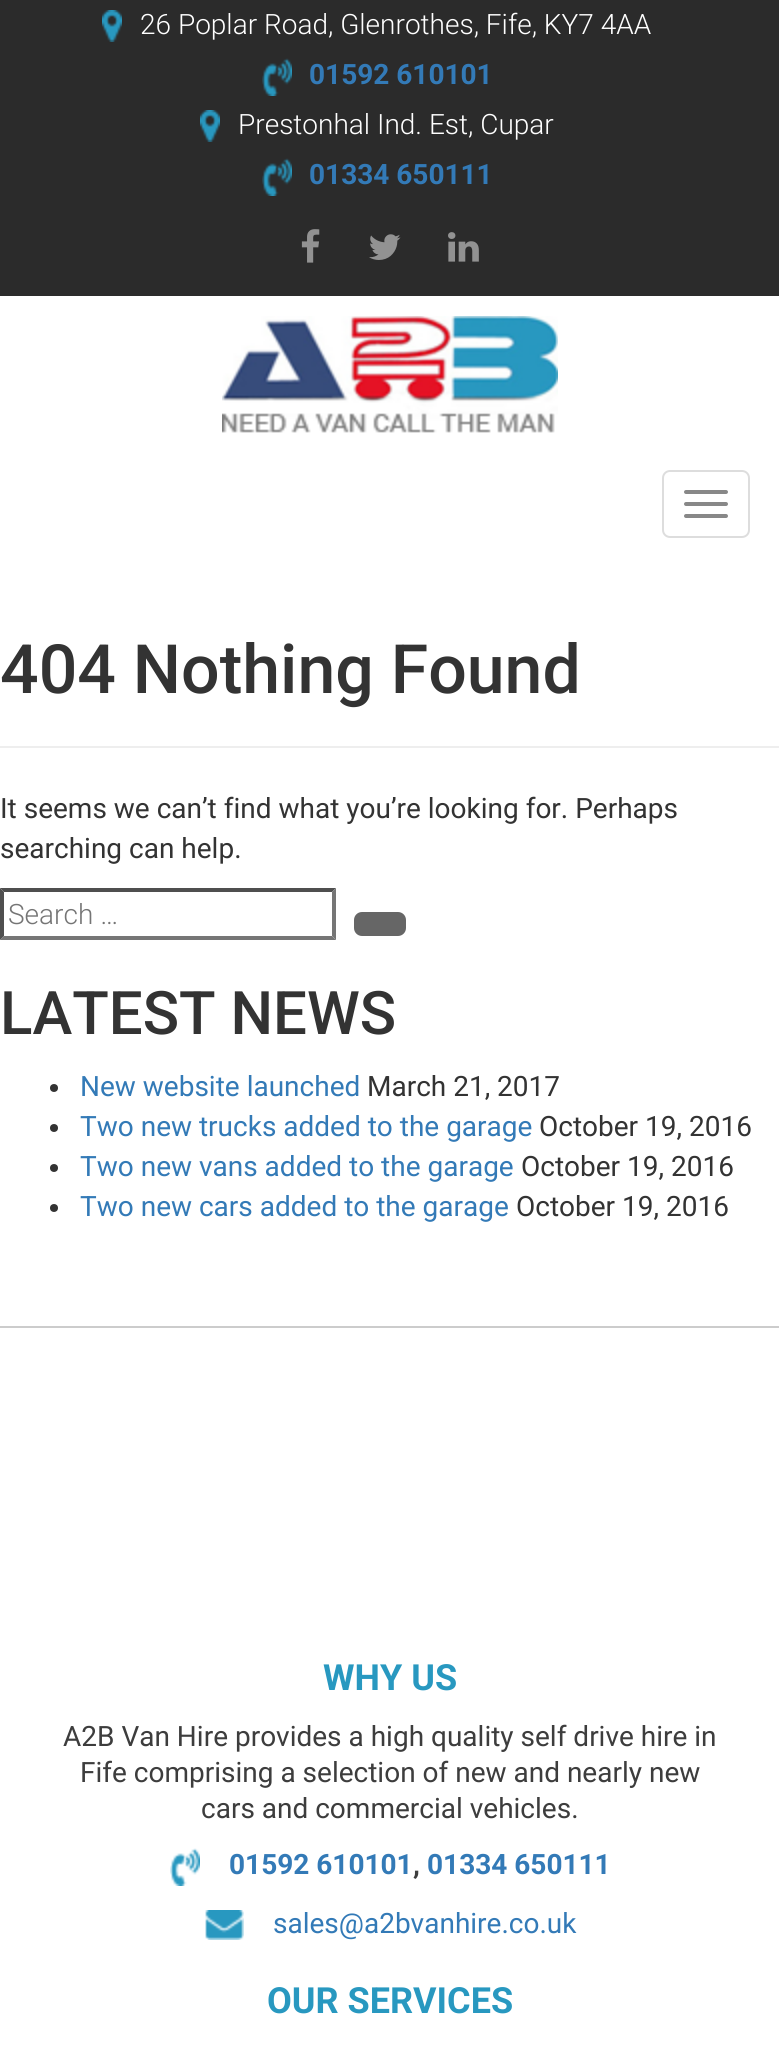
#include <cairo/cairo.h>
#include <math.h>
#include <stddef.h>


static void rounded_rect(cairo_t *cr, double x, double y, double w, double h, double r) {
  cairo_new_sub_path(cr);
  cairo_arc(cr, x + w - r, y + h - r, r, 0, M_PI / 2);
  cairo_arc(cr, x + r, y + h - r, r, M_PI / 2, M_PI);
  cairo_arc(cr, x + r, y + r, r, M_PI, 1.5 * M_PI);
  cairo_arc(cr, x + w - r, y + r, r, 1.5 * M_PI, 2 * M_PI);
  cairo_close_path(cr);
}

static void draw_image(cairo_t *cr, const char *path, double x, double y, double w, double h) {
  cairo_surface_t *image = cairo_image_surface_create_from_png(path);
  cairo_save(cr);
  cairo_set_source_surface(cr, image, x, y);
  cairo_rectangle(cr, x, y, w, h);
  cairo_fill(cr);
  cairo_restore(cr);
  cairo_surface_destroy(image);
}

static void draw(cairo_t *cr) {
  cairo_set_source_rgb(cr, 1, 1, 1);
  cairo_paint(cr);
  cairo_set_source_rgb(cr, 43 / 255.0, 43 / 255.0, 43 / 255.0);
  cairo_rectangle(cr, 0, 0, 779, 296);
  cairo_fill(cr);
  draw_image(cr, "images/1.png", 102, 10, 20, 32);
  draw_image(cr, "images/2.png", 262, 58, 30, 38);
  draw_image(cr, "images/1.png", 200, 110, 20, 32);
  draw_image(cr, "images/2.png", 262, 158, 30, 38);
  draw_image(cr, "images/3.png", 301, 229, 19, 34);
  draw_image(cr, "images/4.png", 369, 234, 32, 26);
  draw_image(cr, "images/5.png", 448, 232, 31, 30);
  draw_image(cr, "images/6.png", 222, 316, 336, 117);
  rounded_rect(cr, 663, 471, 86, 66, 7);
  cairo_set_source_rgb(cr, 221 / 255.0, 221 / 255.0, 221 / 255.0);
  cairo_stroke(cr);
  cairo_set_source_rgb(cr, 136 / 255.0, 136 / 255.0, 136 / 255.0);
  rounded_rect(cr, 684, 490, 44, 4, 2);
  cairo_fill(cr);
  rounded_rect(cr, 684, 502, 44, 4, 2);
  cairo_fill(cr);
  rounded_rect(cr, 684, 514, 44, 4, 2);
  cairo_fill(cr);
  cairo_set_source_rgb(cr, 238 / 255.0, 238 / 255.0, 238 / 255.0);
  cairo_rectangle(cr, 0, 746, 779, 2);
  cairo_fill(cr);
  cairo_set_source_rgb(cr, 79 / 255.0, 79 / 255.0, 79 / 255.0);
  cairo_new_path(cr);
  cairo_move_to(cr, 0, 888);
  cairo_line_to(cr, 336, 888);
  cairo_line_to(cr, 332, 892);
  cairo_line_to(cr, 4, 892);
  cairo_close_path(cr);
  cairo_fill(cr);
  cairo_set_source_rgb(cr, 118 / 255.0, 118 / 255.0, 118 / 255.0);
  cairo_new_path(cr);
  cairo_move_to(cr, 336, 888);
  cairo_line_to(cr, 336, 940);
  cairo_line_to(cr, 332, 936);
  cairo_line_to(cr, 332, 892);
  cairo_close_path(cr);
  cairo_fill(cr);
  cairo_new_path(cr);
  cairo_move_to(cr, 336, 940);
  cairo_line_to(cr, 0, 940);
  cairo_line_to(cr, 4, 936);
  cairo_line_to(cr, 332, 936);
  cairo_close_path(cr);
  cairo_fill(cr);
  cairo_set_source_rgb(cr, 79 / 255.0, 79 / 255.0, 79 / 255.0);
  cairo_new_path(cr);
  cairo_move_to(cr, 0, 940);
  cairo_line_to(cr, 0, 888);
  cairo_line_to(cr, 4, 892);
  cairo_line_to(cr, 4, 936);
  cairo_close_path(cr);
  cairo_fill(cr);
  cairo_set_source_rgb(cr, 102 / 255.0, 102 / 255.0, 102 / 255.0);
  rounded_rect(cr, 354, 912, 52, 24, 8);
  cairo_fill(cr);
  cairo_set_source_rgb(cr, 51 / 255.0, 51 / 255.0, 51 / 255.0);
  cairo_arc(cr, 54, 1088, 4, 0, 2 * M_PI);
  cairo_fill(cr);
  cairo_arc(cr, 54, 1128, 4, 0, 2 * M_PI);
  cairo_fill(cr);
  cairo_arc(cr, 54, 1168, 4, 0, 2 * M_PI);
  cairo_fill(cr);
  cairo_arc(cr, 54, 1208, 4, 0, 2 * M_PI);
  cairo_fill(cr);
  cairo_set_source_rgb(cr, 204 / 255.0, 204 / 255.0, 204 / 255.0);
  cairo_rectangle(cr, 0, 1326, 779, 2);
  cairo_fill(cr);
  draw_image(cr, "images/7.png", 170, 1848, 30, 38);
  draw_image(cr, "images/8.png", 205, 1910, 39, 30);
  cairo_select_font_face(cr, "Roboto Light", CAIRO_FONT_SLANT_NORMAL, CAIRO_FONT_WEIGHT_NORMAL);
  cairo_set_font_size(cr, 28);
  cairo_set_source_rgb(cr, 1, 1, 1);
  cairo_move_to(cr, 140, 34);
  cairo_show_text(cr, "26 Poplar Road, Glenrothes, Fife, KY7 4AA");
  cairo_select_font_face(cr, "Roboto", CAIRO_FONT_SLANT_NORMAL, CAIRO_FONT_WEIGHT_BOLD);
  cairo_set_source_rgb(cr, 51 / 255.0, 122 / 255.0, 183 / 255.0);
  cairo_move_to(cr, 309, 84);
  cairo_show_text(cr, "01592 610101");
  cairo_select_font_face(cr, "Roboto Light", CAIRO_FONT_SLANT_NORMAL, CAIRO_FONT_WEIGHT_NORMAL);
  cairo_set_source_rgb(cr, 1, 1, 1);
  cairo_move_to(cr, 238, 134);
  cairo_show_text(cr, "Prestonhal Ind. Est, Cupar");
  cairo_select_font_face(cr, "Roboto", CAIRO_FONT_SLANT_NORMAL, CAIRO_FONT_WEIGHT_BOLD);
  cairo_set_source_rgb(cr, 51 / 255.0, 122 / 255.0, 183 / 255.0);
  cairo_move_to(cr, 309, 184);
  cairo_show_text(cr, "01334 650111");
  cairo_select_font_face(cr, "Roboto Medium", CAIRO_FONT_SLANT_NORMAL, CAIRO_FONT_WEIGHT_NORMAL);
  cairo_set_font_size(cr, 68);
  cairo_set_source_rgb(cr, 51 / 255.0, 51 / 255.0, 51 / 255.0);
  cairo_move_to(cr, 0, 693);
  cairo_show_text(cr, "404 Nothing Found");
  cairo_select_font_face(cr, "Roboto", CAIRO_FONT_SLANT_NORMAL, CAIRO_FONT_WEIGHT_NORMAL);
  cairo_set_font_size(cr, 28);
  cairo_move_to(cr, 0, 818);
  cairo_show_text(cr, "It seems we can’t find what you’re looking for. Perhaps");
  cairo_move_to(cr, 0, 858);
  cairo_show_text(cr, "searching can help.");
  cairo_select_font_face(cr, "Roboto Light", CAIRO_FONT_SLANT_NORMAL, CAIRO_FONT_WEIGHT_NORMAL);
  cairo_set_source_rgb(cr, 117 / 255.0, 117 / 255.0, 117 / 255.0);
  cairo_move_to(cr, 8, 924);
  cairo_show_text(cr, "Search …");
  cairo_select_font_face(cr, "Roboto Medium", CAIRO_FONT_SLANT_NORMAL, CAIRO_FONT_WEIGHT_NORMAL);
  cairo_set_font_size(cr, 60);
  cairo_set_source_rgb(cr, 51 / 255.0, 51 / 255.0, 51 / 255.0);
  cairo_move_to(cr, 0, 1034);
  cairo_show_text(cr, "LATEST NEWS");
  cairo_select_font_face(cr, "Roboto", CAIRO_FONT_SLANT_NORMAL, CAIRO_FONT_WEIGHT_NORMAL);
  cairo_set_font_size(cr, 28);
  cairo_set_source_rgb(cr, 51 / 255.0, 122 / 255.0, 183 / 255.0);
  cairo_move_to(cr, 80, 1096);
  cairo_show_text(cr, "New website launched");
  cairo_set_source_rgb(cr, 51 / 255.0, 51 / 255.0, 51 / 255.0);
  cairo_move_to(cr, 367, 1096);
  cairo_show_text(cr, "March 21, 2017");
  cairo_set_source_rgb(cr, 51 / 255.0, 122 / 255.0, 183 / 255.0);
  cairo_move_to(cr, 80, 1136);
  cairo_show_text(cr, "Two new trucks added to the garage");
  cairo_set_source_rgb(cr, 51 / 255.0, 51 / 255.0, 51 / 255.0);
  cairo_move_to(cr, 539, 1136);
  cairo_show_text(cr, "October 19, 2016");
  cairo_set_source_rgb(cr, 51 / 255.0, 122 / 255.0, 183 / 255.0);
  cairo_move_to(cr, 80, 1176);
  cairo_show_text(cr, "Two new vans added to the garage");
  cairo_set_source_rgb(cr, 51 / 255.0, 51 / 255.0, 51 / 255.0);
  cairo_move_to(cr, 521, 1176);
  cairo_show_text(cr, "October 19, 2016");
  cairo_set_source_rgb(cr, 51 / 255.0, 122 / 255.0, 183 / 255.0);
  cairo_move_to(cr, 80, 1216);
  cairo_show_text(cr, "Two new cars added to the garage");
  cairo_set_source_rgb(cr, 51 / 255.0, 51 / 255.0, 51 / 255.0);
  cairo_move_to(cr, 516, 1216);
  cairo_show_text(cr, "October 19, 2016");
  cairo_select_font_face(cr, "Roboto", CAIRO_FONT_SLANT_NORMAL, CAIRO_FONT_WEIGHT_BOLD);
  cairo_set_font_size(cr, 36);
  cairo_set_source_rgb(cr, 40 / 255.0, 152 / 255.0, 192 / 255.0);
  cairo_move_to(cr, 323, 1690);
  cairo_show_text(cr, "WHY US");
  cairo_select_font_face(cr, "Roboto", CAIRO_FONT_SLANT_NORMAL, CAIRO_FONT_WEIGHT_NORMAL);
  cairo_set_font_size(cr, 28);
  cairo_set_source_rgb(cr, 61 / 255.0, 61 / 255.0, 61 / 255.0);
  cairo_move_to(cr, 63, 1746);
  cairo_show_text(cr, "A2B Van Hire provides a high quality self drive hire in");
  cairo_move_to(cr, 80, 1782);
  cairo_show_text(cr, "Fife comprising a selection of new and nearly new");
  cairo_move_to(cr, 201, 1818);
  cairo_show_text(cr, "cars and commercial vehicles.");
  cairo_select_font_face(cr, "Roboto", CAIRO_FONT_SLANT_NORMAL, CAIRO_FONT_WEIGHT_BOLD);
  cairo_set_source_rgb(cr, 51 / 255.0, 122 / 255.0, 183 / 255.0);
  cairo_move_to(cr, 229, 1874);
  cairo_show_text(cr, "01592 610101");
  cairo_set_source_rgb(cr, 61 / 255.0, 61 / 255.0, 61 / 255.0);
  cairo_move_to(cr, 413, 1874);
  cairo_show_text(cr, ",");
  cairo_set_source_rgb(cr, 51 / 255.0, 122 / 255.0, 183 / 255.0);
  cairo_move_to(cr, 427, 1874);
  cairo_show_text(cr, "01334 650111");
  cairo_select_font_face(cr, "Roboto", CAIRO_FONT_SLANT_NORMAL, CAIRO_FONT_WEIGHT_NORMAL);
  cairo_move_to(cr, 273, 1933);
  cairo_show_text(cr, "sales@a2bvanhire.co.uk");
  cairo_select_font_face(cr, "Roboto", CAIRO_FONT_SLANT_NORMAL, CAIRO_FONT_WEIGHT_BOLD);
  cairo_set_font_size(cr, 36);
  cairo_set_source_rgb(cr, 40 / 255.0, 152 / 255.0, 192 / 255.0);
  cairo_move_to(cr, 267, 2013);
  cairo_show_text(cr, "OUR SERVICES");
}

int main(void) {
  cairo_surface_t *surface = cairo_image_surface_create(CAIRO_FORMAT_RGB24, 779, 2057);
  cairo_t *cr = cairo_create(surface);
  cairo_font_options_t *options = cairo_font_options_create();
  cairo_font_options_set_hint_metrics(options, CAIRO_HINT_METRICS_OFF);
  cairo_font_options_set_hint_style(options, CAIRO_HINT_STYLE_NONE);
  cairo_set_font_options(cr, options);
  cairo_set_miter_limit(cr, 4);
  draw(cr);
  cairo_surface_write_to_png(surface, "out.png");
  cairo_font_options_destroy(options);
  cairo_destroy(cr);
  cairo_surface_destroy(surface);
  return 0;
}
